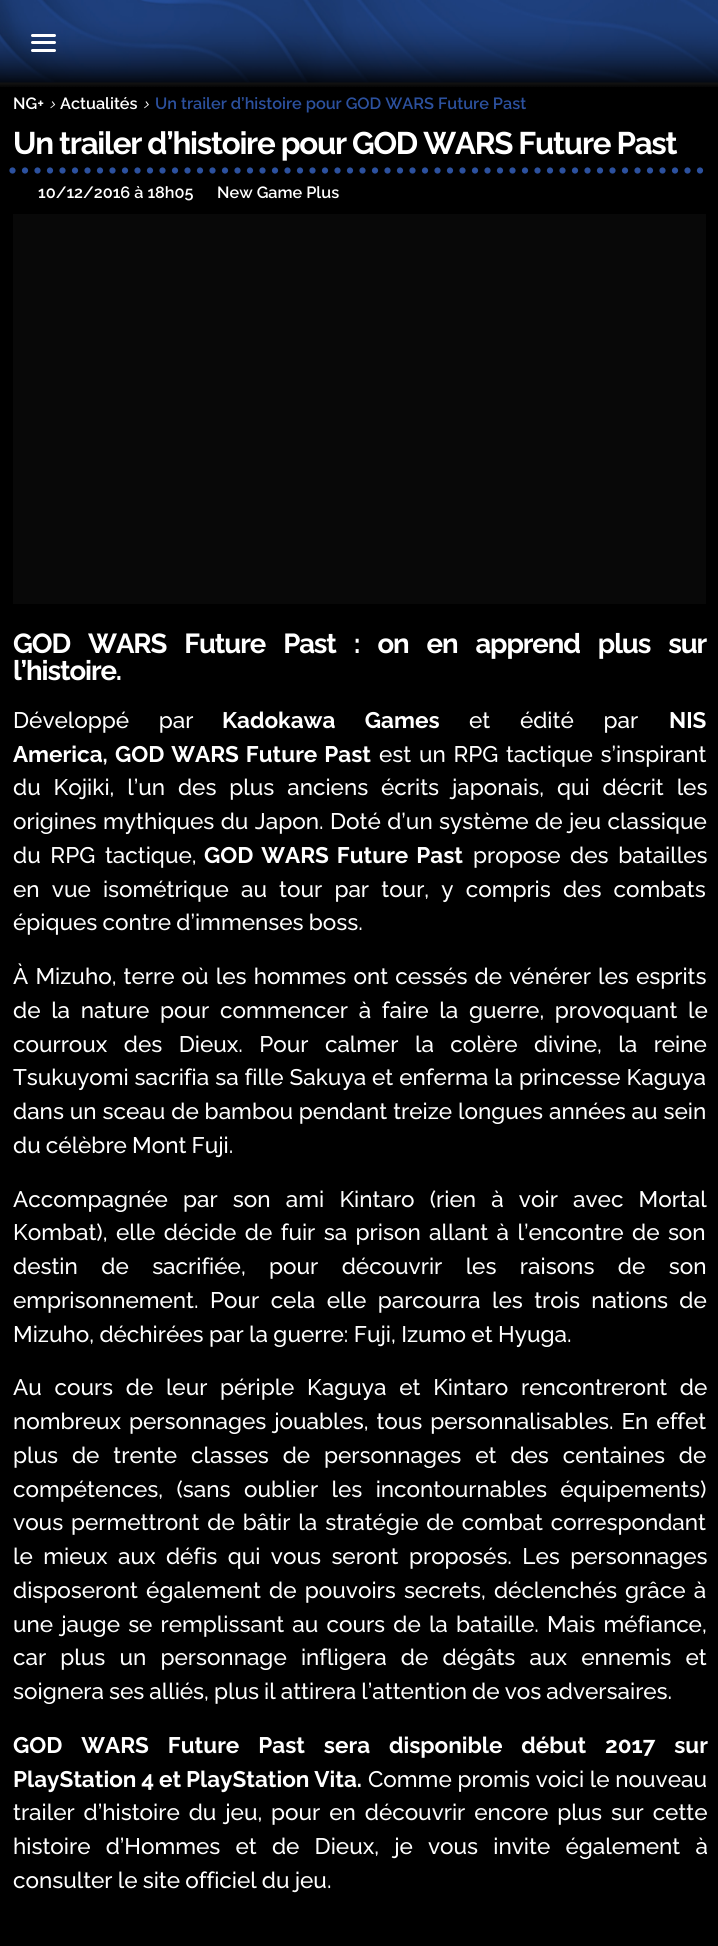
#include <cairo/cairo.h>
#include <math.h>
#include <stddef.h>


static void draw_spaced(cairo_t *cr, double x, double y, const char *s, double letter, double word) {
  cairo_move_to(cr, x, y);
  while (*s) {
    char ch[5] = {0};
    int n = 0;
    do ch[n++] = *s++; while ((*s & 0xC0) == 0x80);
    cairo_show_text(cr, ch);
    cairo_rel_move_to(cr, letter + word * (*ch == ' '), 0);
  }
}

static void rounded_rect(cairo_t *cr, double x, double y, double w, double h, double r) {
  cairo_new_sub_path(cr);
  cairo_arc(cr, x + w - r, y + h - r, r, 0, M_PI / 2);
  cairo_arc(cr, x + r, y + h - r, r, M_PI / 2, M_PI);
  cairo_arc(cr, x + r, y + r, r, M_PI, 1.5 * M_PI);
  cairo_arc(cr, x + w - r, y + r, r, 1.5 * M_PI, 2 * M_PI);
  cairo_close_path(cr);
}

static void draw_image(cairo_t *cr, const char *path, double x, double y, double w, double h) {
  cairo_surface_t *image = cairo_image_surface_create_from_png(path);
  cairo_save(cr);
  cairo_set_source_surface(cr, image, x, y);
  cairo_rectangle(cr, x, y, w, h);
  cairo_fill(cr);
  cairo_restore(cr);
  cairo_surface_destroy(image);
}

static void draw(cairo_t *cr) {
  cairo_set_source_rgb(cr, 0, 0, 0);
  cairo_paint(cr);
  draw_image(cr, "images/1.png", 0, 0, 718, 87);
  cairo_set_source_rgb(cr, 1, 1, 1);
  rounded_rect(cr, 31, 34, 25, 3, 1.5);
  cairo_fill(cr);
  rounded_rect(cr, 31, 41, 25, 3, 1.5);
  cairo_fill(cr);
  rounded_rect(cr, 31, 49, 25, 3, 1.5);
  cairo_fill(cr);
  draw_image(cr, "images/2.png", 50, 101, 6, 8);
  draw_image(cr, "images/3.png", 144, 101, 5, 8);
  cairo_new_path(cr);
  cairo_move_to(cr, 12.5, 170.5);
  cairo_line_to(cr, 706, 170.5);
  cairo_set_source_rgb(cr, 44 / 255.0, 81 / 255.0, 159 / 255.0);
  cairo_set_line_width(cr, 6.2);
  cairo_set_line_cap(cr, CAIRO_LINE_CAP_ROUND);
  cairo_set_dash(cr, (double[]){0, 12.5}, 2, 0);
  cairo_stroke(cr);
  cairo_set_source_rgb(cr, 8 / 255.0, 8 / 255.0, 8 / 255.0);
  cairo_rectangle(cr, 13, 214, 693, 390);
  cairo_fill(cr);
  cairo_select_font_face(cr, "Raleway SemiBold", CAIRO_FONT_SLANT_NORMAL, CAIRO_FONT_WEIGHT_NORMAL);
  cairo_set_font_size(cr, 16.25);
  cairo_set_source_rgb(cr, 1, 1, 1);
  cairo_move_to(cr, 13, 109);
  cairo_show_text(cr, "NG+");
  cairo_move_to(cr, 60, 109);
  cairo_show_text(cr, "Actualités");
  cairo_set_source_rgb(cr, 44 / 255.0, 81 / 255.0, 159 / 255.0);
  cairo_move_to(cr, 155, 109);
  cairo_show_text(cr, "Un trailer d’histoire pour GOD WARS Future Past");
  cairo_select_font_face(cr, "Raleway", CAIRO_FONT_SLANT_NORMAL, CAIRO_FONT_WEIGHT_BOLD);
  cairo_set_font_size(cr, 31.25);
  cairo_set_source_rgb(cr, 1, 1, 1);
  draw_spaced(cr, 13, 154, "Un trailer d’histoire pour GOD WARS Future Past", -1.25, 0);
  cairo_select_font_face(cr, "Raleway SemiBold", CAIRO_FONT_SLANT_NORMAL, CAIRO_FONT_WEIGHT_NORMAL);
  cairo_set_font_size(cr, 16.25);
  cairo_move_to(cr, 38, 198);
  cairo_show_text(cr, "10/12/2016 à 18h05");
  cairo_move_to(cr, 217, 198);
  cairo_show_text(cr, "New Game Plus");
  cairo_select_font_face(cr, "Raleway", CAIRO_FONT_SLANT_NORMAL, CAIRO_FONT_WEIGHT_BOLD);
  cairo_set_font_size(cr, 27.5);
  draw_spaced(cr, 13, 653, "GOD WARS Future Past : on en apprend plus sur", -1.1, 12.5);
  draw_spaced(cr, 13, 680, "l’histoire.", -1.1, 0);
  cairo_select_font_face(cr, "Raleway Medium", CAIRO_FONT_SLANT_NORMAL, CAIRO_FONT_WEIGHT_NORMAL);
  cairo_set_font_size(cr, 22.5);
  draw_spaced(cr, 13, 728, "Développé par", 0, 24);
  cairo_select_font_face(cr, "Raleway", CAIRO_FONT_SLANT_NORMAL, CAIRO_FONT_WEIGHT_BOLD);
  draw_spaced(cr, 222, 728, "Kadokawa Games", 0, 24);
  cairo_select_font_face(cr, "Raleway Medium", CAIRO_FONT_SLANT_NORMAL, CAIRO_FONT_WEIGHT_NORMAL);
  draw_spaced(cr, 469, 728, "et édité par", 0, 24);
  cairo_select_font_face(cr, "Raleway", CAIRO_FONT_SLANT_NORMAL, CAIRO_FONT_WEIGHT_BOLD);
  cairo_move_to(cr, 669, 728);
  cairo_show_text(cr, "NIS");
  cairo_move_to(cr, 13, 762);
  cairo_show_text(cr, "America,");
  draw_spaced(cr, 115, 762, "GOD WARS Future Past", 0, 1.5);
  cairo_select_font_face(cr, "Raleway Medium", CAIRO_FONT_SLANT_NORMAL, CAIRO_FONT_WEIGHT_NORMAL);
  draw_spaced(cr, 379, 762, "est un RPG tactique s’inspirant", 0, 2);
  draw_spaced(cr, 13, 795, "du Kojiki, l’un des plus anciens écrits japonais, qui décrit les", 0, 7.25);
  draw_spaced(cr, 13, 829, "origines mythiques du Japon. Doté d’un système de jeu classique", 0, 0.75);
  draw_spaced(cr, 13, 863, "du RPG tactique,", 0, 4);
  cairo_select_font_face(cr, "Raleway", CAIRO_FONT_SLANT_NORMAL, CAIRO_FONT_WEIGHT_BOLD);
  draw_spaced(cr, 204, 863, "GOD WARS Future Past", 0, 2.5);
  cairo_select_font_face(cr, "Raleway Medium", CAIRO_FONT_SLANT_NORMAL, CAIRO_FONT_WEIGHT_NORMAL);
  draw_spaced(cr, 473, 863, "propose des batailles", 0, 4);
  draw_spaced(cr, 13, 897, "en vue isométrique au tour par tour, y compris des combats", 0, 6.5);
  draw_spaced(cr, 13, 930, "épiques contre d’immenses boss.", 0, -0.5);
  draw_spaced(cr, 13, 984, "À Mizuho, terre où les hommes ont cessés de vénérer les esprits", 0, 1.5);
  draw_spaced(cr, 13, 1018, "de la nature pour commencer à faire la guerre, provoquant le", 0, 5);
  draw_spaced(cr, 13, 1052, "courroux des Dieux. Pour calmer la colère divine, la reine", 0, 10.75);
  draw_spaced(cr, 13, 1085, "Tsukuyomi sacrifia sa fille Sakuya et enferma la princesse Kaguya", 0, 0.25);
  draw_spaced(cr, 13, 1119, "dans un sceau de bambou pendant treize longues années au sein", 0, 0.25);
  draw_spaced(cr, 13, 1153, "du célèbre Mont Fuji.", 0, -0.5);
  draw_spaced(cr, 13, 1207, "Accompagnée par son ami Kintaro (rien à voir avec Mortal", 0, 9.5);
  draw_spaced(cr, 13, 1240, "Kombat), elle décide de fuir sa prison allant à l’encontre de son", 0, 2.75);
  draw_spaced(cr, 13, 1274, "destin de sacrifiée, pour découvrir les raisons de son", 0, 17.75);
  draw_spaced(cr, 13, 1308, "emprisonnement. Pour cela elle parcourra les trois nations de", 0, 5.75);
  draw_spaced(cr, 13, 1342, "Mizuho, déchirées par la guerre: Fuji, Izumo et Hyuga.", 0, -0.25);
  draw_spaced(cr, 13, 1395, "Au cours de leur périple Kaguya et Kintaro rencontreront de", 0, 7);
  draw_spaced(cr, 13, 1429, "nombreux personnages jouables, tous personnalisables. En effet", 0, 2.25);
  draw_spaced(cr, 13, 1463, "plus de trente classes de personnages et des centaines de", 0, 8.25);
  draw_spaced(cr, 13, 1497, "compétences, (sans oublier les incontournables équipements)", 0, 7.75);
  draw_spaced(cr, 13, 1530, "vous permettront de bâtir la stratégie de combat correspondant", 0, 2.25);
  draw_spaced(cr, 13, 1564, "le mieux aux défis qui vous seront proposés. Les personnages", 0, 4.75);
  draw_spaced(cr, 13, 1598, "disposeront également de pouvoirs secrets, déclenchés grâce à", 0, 2.5);
  draw_spaced(cr, 13, 1632, "une jauge se remplissant au cours de la bataille. Mais méfiance,", 0, 2.5);
  draw_spaced(cr, 13, 1665, "car plus un personnage infligera de dégâts aux ennemis et", 0, 8.5);
  draw_spaced(cr, 13, 1699, "soignera ses alliés, plus il attirera l’attention de vos adversaires.", 0, -0.6);
  cairo_select_font_face(cr, "Raleway", CAIRO_FONT_SLANT_NORMAL, CAIRO_FONT_WEIGHT_BOLD);
  draw_spaced(cr, 13, 1753, "GOD WARS Future Past sera disponible début 2017 sur", 0, 13.5);
  draw_spaced(cr, 13, 1787, "PlayStation 4 et PlayStation Vita.", 0, -0.5);
  cairo_select_font_face(cr, "Raleway Medium", CAIRO_FONT_SLANT_NORMAL, CAIRO_FONT_WEIGHT_NORMAL);
  cairo_move_to(cr, 368, 1787);
  cairo_show_text(cr, "Comme promis voici le nouveau");
  draw_spaced(cr, 13, 1820, "trailer d’histoire du jeu, pour en découvrir encore plus sur cette", 0, 3.25);
  draw_spaced(cr, 13, 1854, "histoire d’Hommes et de Dieux, je vous invite également à", 0, 9.5);
  draw_spaced(cr, 13, 1888, "consulter le site officiel du jeu.", 0, -0.5);
}

int main(void) {
  cairo_surface_t *surface = cairo_image_surface_create(CAIRO_FORMAT_RGB24, 718, 1946);
  cairo_t *cr = cairo_create(surface);
  cairo_font_options_t *options = cairo_font_options_create();
  cairo_font_options_set_hint_metrics(options, CAIRO_HINT_METRICS_OFF);
  cairo_font_options_set_hint_style(options, CAIRO_HINT_STYLE_NONE);
  cairo_set_font_options(cr, options);
  cairo_set_miter_limit(cr, 4);
  draw(cr);
  cairo_surface_write_to_png(surface, "out.png");
  cairo_font_options_destroy(options);
  cairo_destroy(cr);
  cairo_surface_destroy(surface);
  return 0;
}
